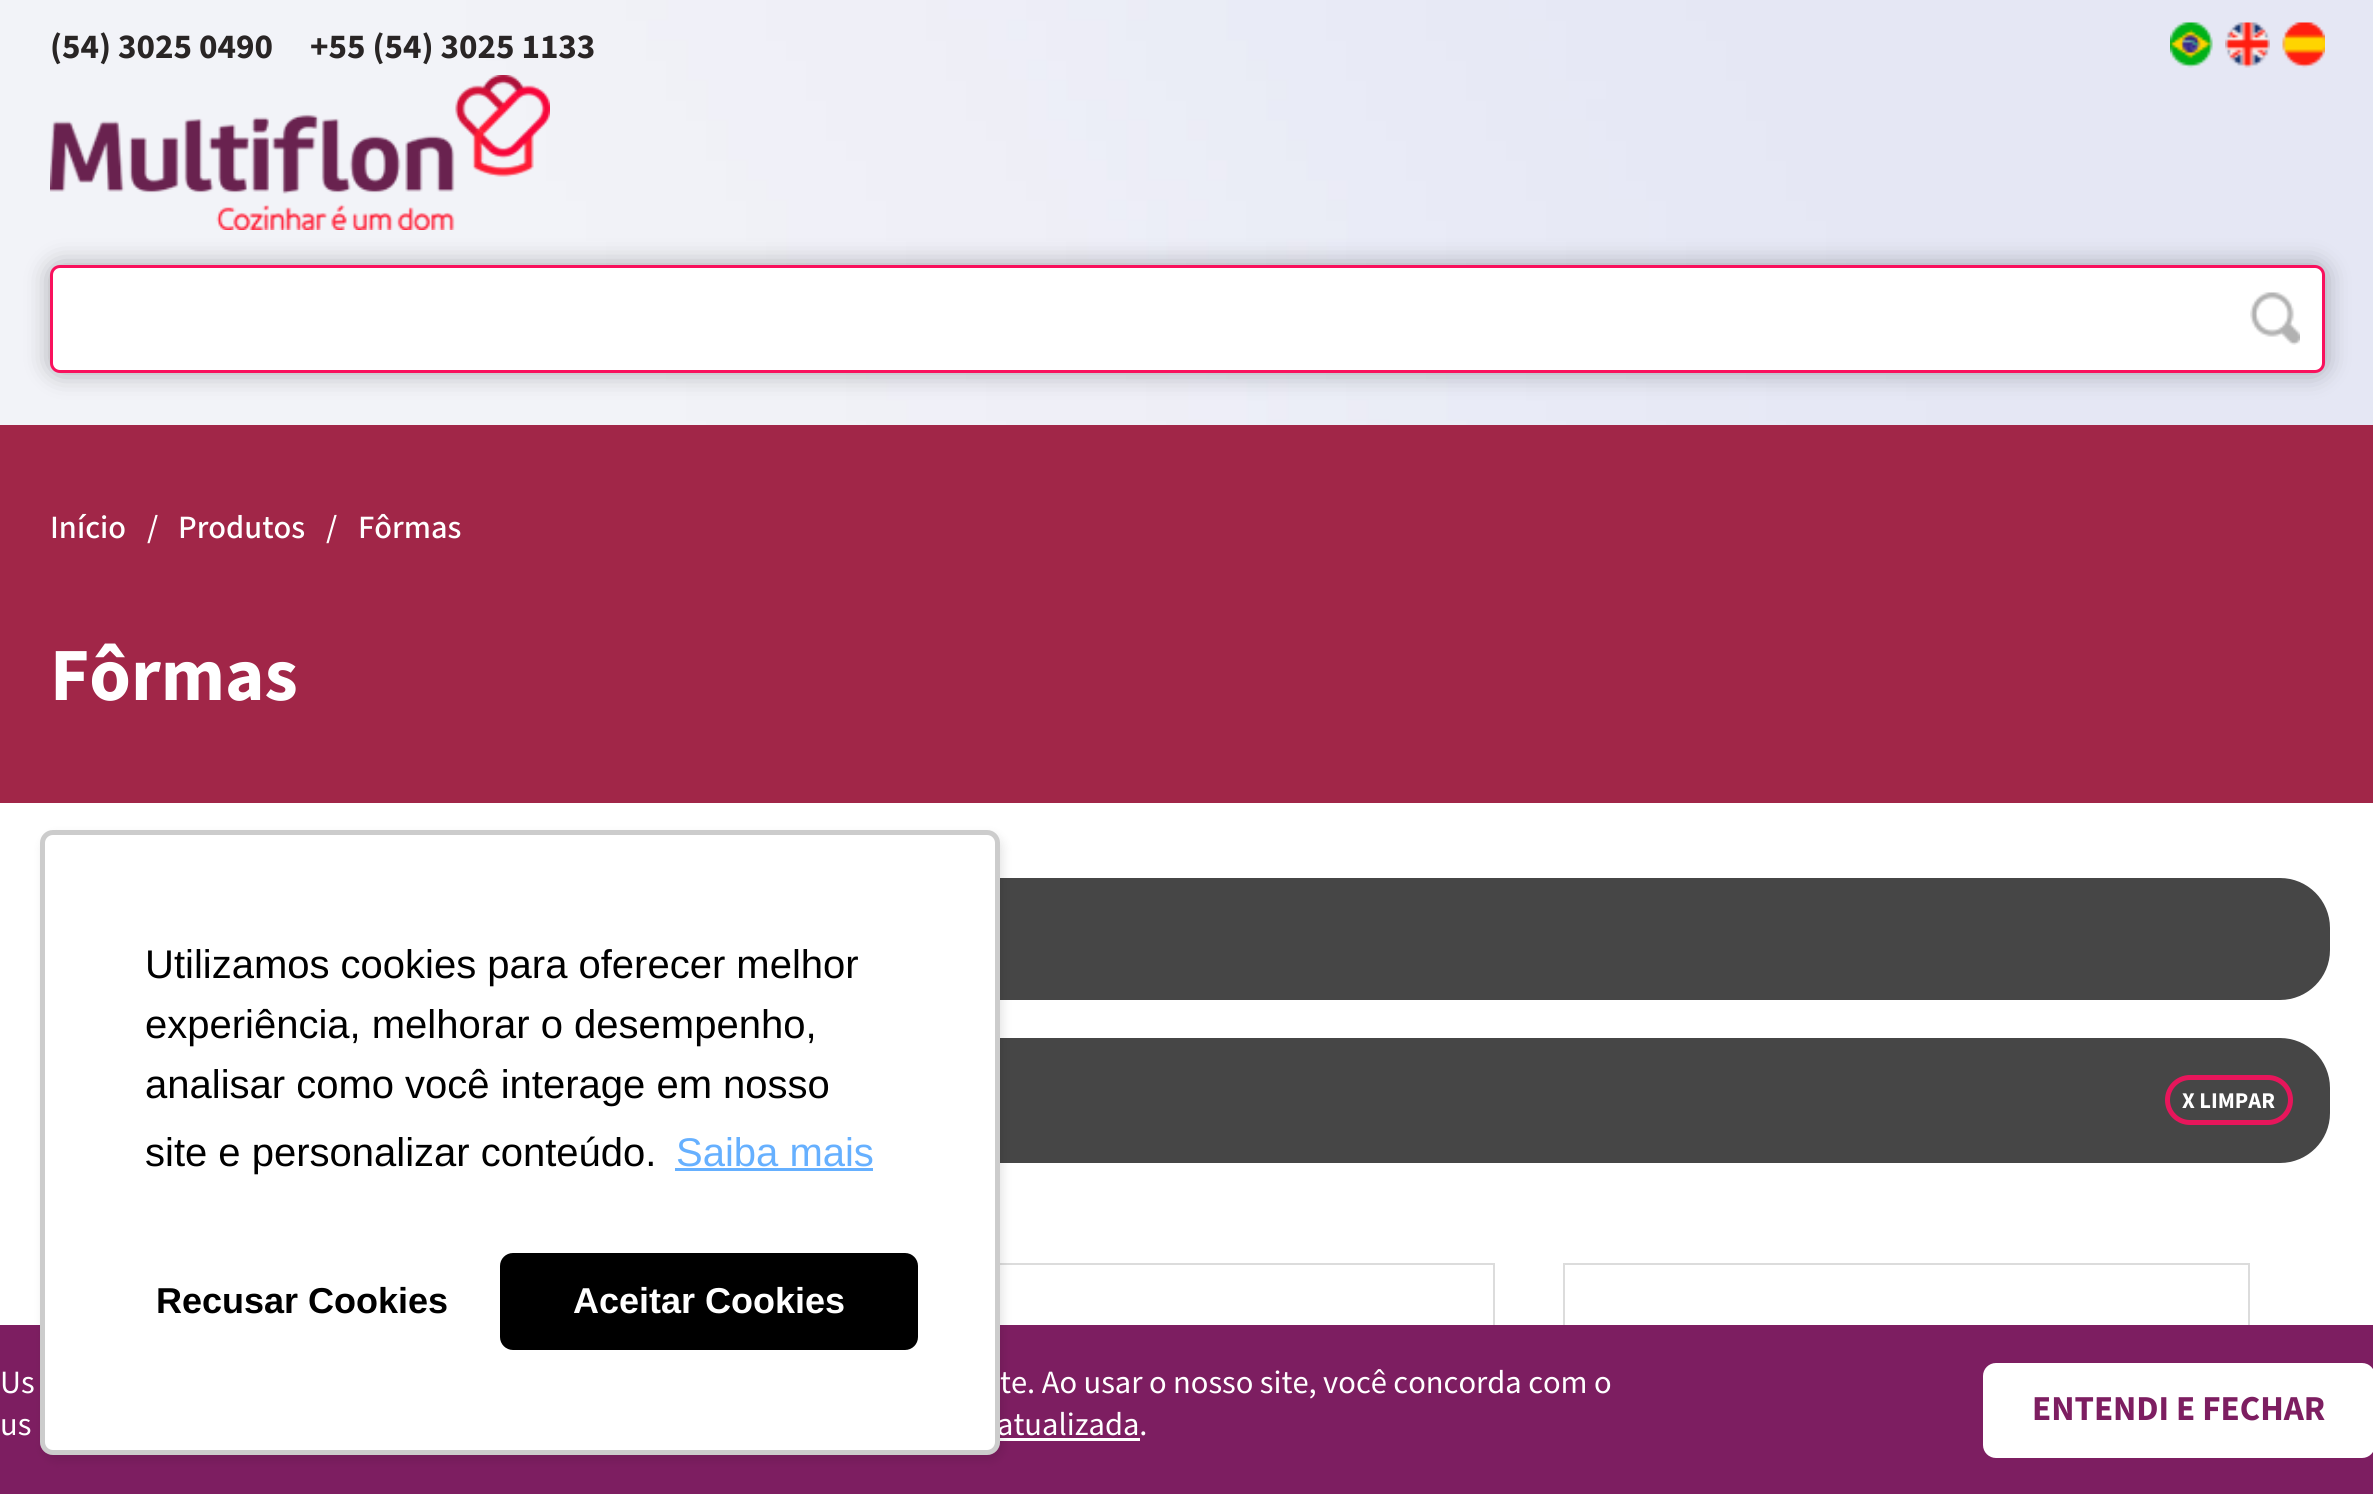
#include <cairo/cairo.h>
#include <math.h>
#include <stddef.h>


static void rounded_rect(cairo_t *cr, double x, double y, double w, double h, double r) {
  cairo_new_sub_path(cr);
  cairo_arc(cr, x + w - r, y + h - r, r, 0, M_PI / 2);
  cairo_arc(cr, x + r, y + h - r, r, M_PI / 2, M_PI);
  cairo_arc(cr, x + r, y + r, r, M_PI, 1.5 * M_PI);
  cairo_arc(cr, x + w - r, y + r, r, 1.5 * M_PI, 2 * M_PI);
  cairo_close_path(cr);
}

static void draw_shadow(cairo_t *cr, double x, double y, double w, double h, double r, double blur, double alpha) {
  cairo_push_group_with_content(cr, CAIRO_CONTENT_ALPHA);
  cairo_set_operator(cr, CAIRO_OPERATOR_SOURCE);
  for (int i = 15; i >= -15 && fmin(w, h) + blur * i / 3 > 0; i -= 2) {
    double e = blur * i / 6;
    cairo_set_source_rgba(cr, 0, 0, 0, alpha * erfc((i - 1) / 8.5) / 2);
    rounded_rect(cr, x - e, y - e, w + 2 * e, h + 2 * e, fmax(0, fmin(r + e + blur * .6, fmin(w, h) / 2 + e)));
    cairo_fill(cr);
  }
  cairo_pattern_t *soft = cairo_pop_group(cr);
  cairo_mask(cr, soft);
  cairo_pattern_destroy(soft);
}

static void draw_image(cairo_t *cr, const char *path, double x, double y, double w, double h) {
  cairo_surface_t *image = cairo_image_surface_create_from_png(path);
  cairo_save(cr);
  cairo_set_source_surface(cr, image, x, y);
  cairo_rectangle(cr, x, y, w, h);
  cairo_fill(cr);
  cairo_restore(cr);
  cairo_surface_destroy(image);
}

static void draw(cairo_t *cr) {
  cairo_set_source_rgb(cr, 1, 1, 1);
  cairo_paint(cr);
  draw_image(cr, "images/1.png", 0, 0, 2373, 425);
  draw_image(cr, "images/2.png", 2170, 22, 43, 46);
  draw_image(cr, "images/3.png", 2225, 22, 45, 46);
  draw_image(cr, "images/4.png", 2282, 22, 43, 46);
  draw_image(cr, "images/6.png", 50, 75, 500, 155);
  cairo_set_source_rgb(cr, 0, 0, 0);
  draw_shadow(cr, 50, 265, 2275, 108, 10, 12.5, 0.3);
  cairo_set_source_rgb(cr, 1, 1, 1);
  rounded_rect(cr, 51.5, 266.5, 2272, 105, 8.5);
  cairo_fill_preserve(cr);
  cairo_set_source_rgb(cr, 249 / 255.0, 17 / 255.0, 93 / 255.0);
  cairo_set_line_width(cr, 3);
  cairo_stroke(cr);
  draw_image(cr, "images/5.png", 2250, 292, 50, 53);
  cairo_set_source_rgb(cr, 161 / 255.0, 38 / 255.0, 72 / 255.0);
  cairo_rectangle(cr, 0, 425, 2373, 378);
  cairo_fill(cr);
  cairo_set_source_rgb(cr, 70 / 255.0, 70 / 255.0, 70 / 255.0);
  rounded_rect(cr, 50, 878, 2280, 122, 50);
  cairo_fill(cr);
  rounded_rect(cr, 50, 1038, 2280, 125, 50);
  cairo_fill(cr);
  rounded_rect(cr, 2167.5, 1077.5, 123, 45, 22.5);
  cairo_set_source_rgb(cr, 231 / 255.0, 22 / 255.0, 91 / 255.0);
  cairo_set_line_width(cr, 5);
  cairo_stroke(cr);
  cairo_rectangle(cr, 809.5, 1264.5, 684, 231);
  cairo_set_source_rgb(cr, 220 / 255.0, 220 / 255.0, 220 / 255.0);
  cairo_set_line_width(cr, 3);
  cairo_stroke(cr);
  cairo_set_source_rgb(cr, 1, 1, 1);
  cairo_rectangle(cr, 1000, 1265, 493, 60);
  cairo_fill(cr);
  cairo_rectangle(cr, 1564.5, 1264.5, 684, 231);
  cairo_set_source_rgb(cr, 220 / 255.0, 220 / 255.0, 220 / 255.0);
  cairo_stroke(cr);
  cairo_set_source_rgb(cr, 1, 1, 1);
  cairo_rectangle(cr, 1565, 1265, 683, 60);
  cairo_fill(cr);
  cairo_set_source_rgb(cr, 125 / 255.0, 30 / 255.0, 97 / 255.0);
  cairo_rectangle(cr, 0, 1325, 2373, 169);
  cairo_fill(cr);
  cairo_set_source_rgb(cr, 1, 1, 1);
  cairo_rectangle(cr, 1000, 1438, 140, 3);
  cairo_fill(cr);
  cairo_set_source_rgb(cr, 0, 0, 0);
  draw_shadow(cr, 43, 835, 960, 625, 13, 5, 0.1);
  cairo_set_source_rgb(cr, 1, 1, 1);
  rounded_rect(cr, 40, 830, 960, 625, 13);
  cairo_fill(cr);
  rounded_rect(cr, 1983, 1363, 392, 95, 13);
  cairo_fill(cr);
  cairo_select_font_face(cr, "Mada", CAIRO_FONT_SLANT_NORMAL, CAIRO_FONT_WEIGHT_BOLD);
  cairo_set_font_size(cr, 35);
  cairo_set_source_rgb(cr, 41 / 255.0, 37 / 255.0, 37 / 255.0);
  cairo_move_to(cr, 50, 58);
  cairo_show_text(cr, "(54) 3025 0490");
  cairo_move_to(cr, 310, 58);
  cairo_show_text(cr, "+55 (54) 3025 1133");
  cairo_select_font_face(cr, "Mada Medium", CAIRO_FONT_SLANT_NORMAL, CAIRO_FONT_WEIGHT_NORMAL);
  cairo_set_font_size(cr, 32.5);
  cairo_set_source_rgb(cr, 1, 1, 1);
  cairo_move_to(cr, 50, 538);
  cairo_show_text(cr, "Início");
  cairo_move_to(cr, 147, 538);
  cairo_show_text(cr, "/");
  cairo_move_to(cr, 178, 538);
  cairo_show_text(cr, "Produtos");
  cairo_move_to(cr, 326, 538);
  cairo_show_text(cr, "/");
  cairo_move_to(cr, 358, 538);
  cairo_show_text(cr, "Fôrmas");
  cairo_select_font_face(cr, "Mada", CAIRO_FONT_SLANT_NORMAL, CAIRO_FONT_WEIGHT_BOLD);
  cairo_set_font_size(cr, 75);
  cairo_move_to(cr, 50, 700);
  cairo_show_text(cr, "Fôrmas");
  cairo_set_font_size(cr, 22.5);
  cairo_move_to(cr, 2182, 1108);
  cairo_show_text(cr, "X LIMPAR");
  cairo_select_font_face(cr, "Mada", CAIRO_FONT_SLANT_NORMAL, CAIRO_FONT_WEIGHT_NORMAL);
  cairo_set_font_size(cr, 32.5);
  cairo_move_to(cr, 0, 1393);
  cairo_show_text(cr, "Us");
  cairo_move_to(cr, 1000, 1393);
  cairo_show_text(cr, "te. Ao usar o nosso site, você concorda com o");
  cairo_move_to(cr, 0, 1435);
  cairo_show_text(cr, "us");
  cairo_move_to(cr, 997, 1435);
  cairo_show_text(cr, "atualizada.");
  rounded_rect(cr, 42.5, 832.5, 955, 620, 10.5);
  cairo_set_source_rgba(cr, 0, 0, 0, 0.2);
  cairo_set_line_width(cr, 5);
  cairo_stroke(cr);
  cairo_set_source_rgb(cr, 0, 0, 0);
  rounded_rect(cr, 500, 1253, 418, 97, 13);
  cairo_fill(cr);
  cairo_select_font_face(cr, "Liberation Sans", CAIRO_FONT_SLANT_NORMAL, CAIRO_FONT_WEIGHT_BOLD);
  cairo_set_font_size(cr, 36);
  cairo_set_source_rgb(cr, 1, 1, 1);
  cairo_move_to(cr, 573, 1313);
  cairo_show_text(cr, "Aceitar Cookies");
  cairo_set_source_rgb(cr, 0, 0, 0);
  cairo_move_to(cr, 156, 1313);
  cairo_show_text(cr, "Recusar Cookies");
  cairo_select_font_face(cr, "Liberation Sans", CAIRO_FONT_SLANT_NORMAL, CAIRO_FONT_WEIGHT_NORMAL);
  cairo_set_font_size(cr, 40);
  cairo_set_source_rgb(cr, 102 / 255.0, 176 / 255.0, 1);
  cairo_move_to(cr, 676, 1166);
  cairo_show_text(cr, "Saiba mais");
  cairo_rectangle(cr, 675, 1168, 198, 3);
  cairo_fill(cr);
  cairo_set_source_rgb(cr, 0, 0, 0);
  cairo_move_to(cr, 145, 1166);
  cairo_show_text(cr, "site e personalizar conteúdo.");
  cairo_move_to(cr, 145, 1098);
  cairo_show_text(cr, "analisar como você interage em nosso");
  cairo_move_to(cr, 145, 1038);
  cairo_show_text(cr, "experiência, melhorar o desempenho,");
  cairo_move_to(cr, 145, 978);
  cairo_show_text(cr, "Utilizamos cookies para oferecer melhor");
  cairo_select_font_face(cr, "Mada", CAIRO_FONT_SLANT_NORMAL, CAIRO_FONT_WEIGHT_BOLD);
  cairo_set_font_size(cr, 35);
  cairo_set_source_rgb(cr, 125 / 255.0, 30 / 255.0, 97 / 255.0);
  cairo_move_to(cr, 2032, 1420);
  cairo_show_text(cr, "ENTENDI E FECHAR");
}

int main(void) {
  cairo_surface_t *surface = cairo_image_surface_create(CAIRO_FORMAT_RGB24, 2373, 1494);
  cairo_t *cr = cairo_create(surface);
  cairo_font_options_t *options = cairo_font_options_create();
  cairo_font_options_set_hint_metrics(options, CAIRO_HINT_METRICS_OFF);
  cairo_font_options_set_hint_style(options, CAIRO_HINT_STYLE_NONE);
  cairo_set_font_options(cr, options);
  cairo_set_miter_limit(cr, 4);
  draw(cr);
  cairo_surface_write_to_png(surface, "out.png");
  cairo_font_options_destroy(options);
  cairo_destroy(cr);
  cairo_surface_destroy(surface);
  return 0;
}
